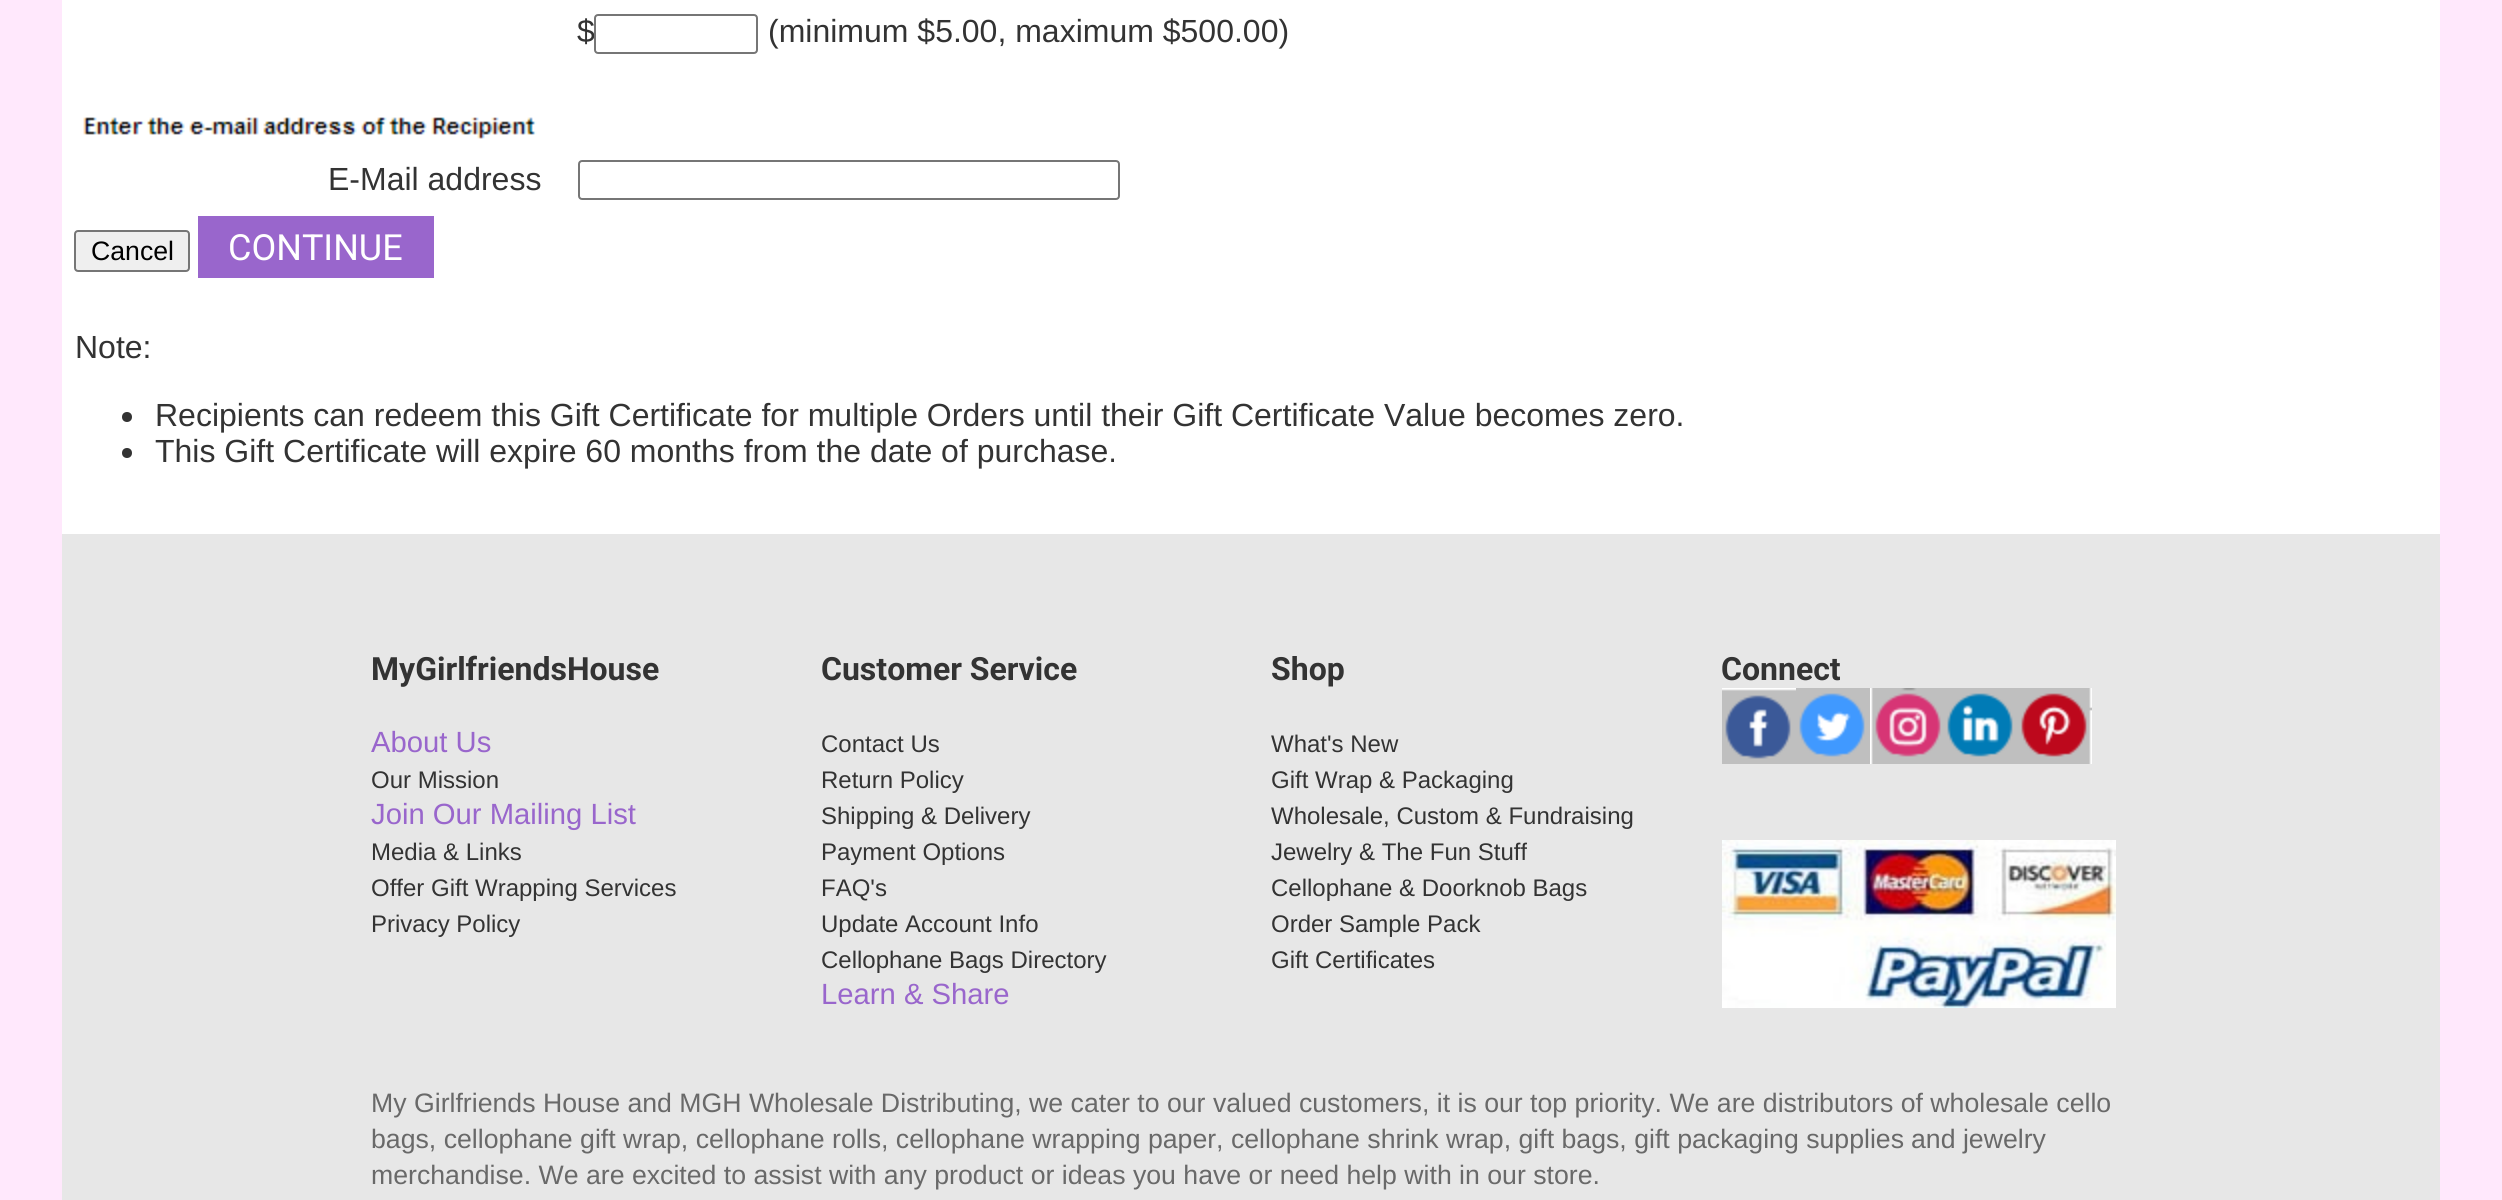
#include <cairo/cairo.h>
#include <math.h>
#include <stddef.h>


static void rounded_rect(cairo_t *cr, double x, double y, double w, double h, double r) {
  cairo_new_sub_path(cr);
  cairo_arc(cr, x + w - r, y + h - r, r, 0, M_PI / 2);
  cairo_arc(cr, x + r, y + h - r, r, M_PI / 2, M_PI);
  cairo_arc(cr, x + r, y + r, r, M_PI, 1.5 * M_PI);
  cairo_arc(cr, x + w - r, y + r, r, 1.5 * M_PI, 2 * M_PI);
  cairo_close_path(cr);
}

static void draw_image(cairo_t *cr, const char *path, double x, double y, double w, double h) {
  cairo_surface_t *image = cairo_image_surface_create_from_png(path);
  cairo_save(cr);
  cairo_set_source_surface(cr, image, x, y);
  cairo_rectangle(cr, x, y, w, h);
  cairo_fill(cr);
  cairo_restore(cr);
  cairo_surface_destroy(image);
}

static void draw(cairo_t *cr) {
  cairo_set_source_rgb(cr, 1, 232 / 255.0, 252 / 255.0);
  cairo_paint(cr);
  cairo_set_source_rgb(cr, 1, 1, 1);
  cairo_rectangle(cr, 62, 0, 2378, 534);
  cairo_fill(cr);
  draw_image(cr, "images/1.png", 83, 117, 454, 22);
  rounded_rect(cr, 579, 161, 540, 38, 3);
  cairo_set_source_rgb(cr, 118 / 255.0, 118 / 255.0, 118 / 255.0);
  cairo_stroke(cr);
  cairo_set_source_rgb(cr, 239 / 255.0, 239 / 255.0, 239 / 255.0);
  rounded_rect(cr, 75, 231, 114, 40, 3);
  cairo_fill_preserve(cr);
  cairo_set_source_rgb(cr, 118 / 255.0, 118 / 255.0, 118 / 255.0);
  cairo_stroke(cr);
  cairo_set_source_rgb(cr, 153 / 255.0, 102 / 255.0, 204 / 255.0);
  cairo_rectangle(cr, 198, 216, 236, 62);
  cairo_fill(cr);
  cairo_set_source_rgb(cr, 51 / 255.0, 51 / 255.0, 51 / 255.0);
  cairo_arc(cr, 127, 417, 5, 0, 2 * M_PI);
  cairo_fill(cr);
  cairo_arc(cr, 127, 453, 5, 0, 2 * M_PI);
  cairo_fill(cr);
  cairo_set_source_rgb(cr, 231 / 255.0, 231 / 255.0, 231 / 255.0);
  cairo_rectangle(cr, 62, 534, 2378, 666);
  cairo_fill(cr);
  draw_image(cr, "images/2.png", 1722, 688, 74, 76);
  draw_image(cr, "images/3.png", 1796, 688, 74, 76);
  draw_image(cr, "images/4.png", 1870, 688, 74, 76);
  draw_image(cr, "images/5.png", 1944, 688, 74, 76);
  draw_image(cr, "images/6.png", 2018, 688, 74, 76);
  draw_image(cr, "images/7.png", 1722, 840, 394, 168);
  cairo_select_font_face(cr, "Liberation Sans", CAIRO_FONT_SLANT_NORMAL, CAIRO_FONT_WEIGHT_NORMAL);
  cairo_set_font_size(cr, 32);
  cairo_set_source_rgb(cr, 51 / 255.0, 51 / 255.0, 51 / 255.0);
  cairo_move_to(cr, 577, 42);
  cairo_show_text(cr, "$");
  cairo_set_source_rgb(cr, 1, 1, 1);
  rounded_rect(cr, 595, 15, 162, 38, 3);
  cairo_fill_preserve(cr);
  cairo_set_source_rgb(cr, 118 / 255.0, 118 / 255.0, 118 / 255.0);
  cairo_stroke(cr);
  cairo_set_source_rgb(cr, 51 / 255.0, 51 / 255.0, 51 / 255.0);
  cairo_move_to(cr, 768, 42);
  cairo_show_text(cr, "(minimum $5.00, maximum $500.00)");
  cairo_move_to(cr, 328, 190);
  cairo_show_text(cr, "E-Mail address");
  cairo_set_font_size(cr, 26.67);
  cairo_set_source_rgb(cr, 0, 0, 0);
  cairo_move_to(cr, 91, 260);
  cairo_show_text(cr, "Cancel");
  cairo_select_font_face(cr, "Roboto", CAIRO_FONT_SLANT_NORMAL, CAIRO_FONT_WEIGHT_NORMAL);
  cairo_set_font_size(cr, 36);
  cairo_set_source_rgb(cr, 1, 1, 1);
  cairo_move_to(cr, 228, 260);
  cairo_show_text(cr, "CONTINUE");
  cairo_select_font_face(cr, "Liberation Sans", CAIRO_FONT_SLANT_NORMAL, CAIRO_FONT_WEIGHT_NORMAL);
  cairo_set_font_size(cr, 32);
  cairo_set_source_rgb(cr, 51 / 255.0, 51 / 255.0, 51 / 255.0);
  cairo_move_to(cr, 75, 358);
  cairo_show_text(cr, "Note:");
  cairo_move_to(cr, 155, 426);
  cairo_show_text(cr, "Recipients can redeem this Gift Certificate for multiple Orders until their Gift Certificate Value becomes zero.");
  cairo_move_to(cr, 155, 462);
  cairo_show_text(cr, "This Gift Certificate will expire 60 months from the date of purchase.");
  cairo_select_font_face(cr, "Roboto", CAIRO_FONT_SLANT_NORMAL, CAIRO_FONT_WEIGHT_BOLD);
  cairo_move_to(cr, 371, 680);
  cairo_show_text(cr, "MyGirlfriendsHouse");
  cairo_select_font_face(cr, "Liberation Sans", CAIRO_FONT_SLANT_NORMAL, CAIRO_FONT_WEIGHT_NORMAL);
  cairo_set_font_size(cr, 29.25);
  cairo_set_source_rgb(cr, 153 / 255.0, 102 / 255.0, 204 / 255.0);
  cairo_move_to(cr, 371, 752);
  cairo_show_text(cr, "About Us");
  cairo_set_font_size(cr, 24);
  cairo_set_source_rgb(cr, 51 / 255.0, 51 / 255.0, 51 / 255.0);
  cairo_move_to(cr, 371, 788);
  cairo_show_text(cr, "Our Mission");
  cairo_set_font_size(cr, 29.25);
  cairo_set_source_rgb(cr, 153 / 255.0, 102 / 255.0, 204 / 255.0);
  cairo_move_to(cr, 371, 824);
  cairo_show_text(cr, "Join Our Mailing List");
  cairo_set_font_size(cr, 24);
  cairo_set_source_rgb(cr, 51 / 255.0, 51 / 255.0, 51 / 255.0);
  cairo_move_to(cr, 371, 860);
  cairo_show_text(cr, "Media & Links");
  cairo_move_to(cr, 371, 896);
  cairo_show_text(cr, "Offer Gift Wrapping Services");
  cairo_move_to(cr, 371, 932);
  cairo_show_text(cr, "Privacy Policy");
  cairo_select_font_face(cr, "Roboto", CAIRO_FONT_SLANT_NORMAL, CAIRO_FONT_WEIGHT_BOLD);
  cairo_set_font_size(cr, 32);
  cairo_move_to(cr, 821, 680);
  cairo_show_text(cr, "Customer Service");
  cairo_select_font_face(cr, "Liberation Sans", CAIRO_FONT_SLANT_NORMAL, CAIRO_FONT_WEIGHT_NORMAL);
  cairo_set_font_size(cr, 24);
  cairo_move_to(cr, 821, 752);
  cairo_show_text(cr, "Contact Us");
  cairo_move_to(cr, 821, 788);
  cairo_show_text(cr, "Return Policy");
  cairo_move_to(cr, 821, 824);
  cairo_show_text(cr, "Shipping & Delivery");
  cairo_move_to(cr, 821, 860);
  cairo_show_text(cr, "Payment Options");
  cairo_move_to(cr, 821, 896);
  cairo_show_text(cr, "FAQ's");
  cairo_move_to(cr, 821, 932);
  cairo_show_text(cr, "Update Account Info");
  cairo_move_to(cr, 821, 968);
  cairo_show_text(cr, "Cellophane Bags Directory");
  cairo_set_font_size(cr, 29.25);
  cairo_set_source_rgb(cr, 153 / 255.0, 102 / 255.0, 204 / 255.0);
  cairo_move_to(cr, 821, 1004);
  cairo_show_text(cr, "Learn & Share");
  cairo_select_font_face(cr, "Roboto", CAIRO_FONT_SLANT_NORMAL, CAIRO_FONT_WEIGHT_BOLD);
  cairo_set_font_size(cr, 32);
  cairo_set_source_rgb(cr, 51 / 255.0, 51 / 255.0, 51 / 255.0);
  cairo_move_to(cr, 1271, 680);
  cairo_show_text(cr, "Shop");
  cairo_select_font_face(cr, "Liberation Sans", CAIRO_FONT_SLANT_NORMAL, CAIRO_FONT_WEIGHT_NORMAL);
  cairo_set_font_size(cr, 24);
  cairo_move_to(cr, 1271, 752);
  cairo_show_text(cr, "What's New");
  cairo_move_to(cr, 1271, 788);
  cairo_show_text(cr, "Gift Wrap & Packaging");
  cairo_move_to(cr, 1271, 824);
  cairo_show_text(cr, "Wholesale, Custom & Fundraising");
  cairo_move_to(cr, 1271, 860);
  cairo_show_text(cr, "Jewelry & The Fun Stuff");
  cairo_move_to(cr, 1271, 896);
  cairo_show_text(cr, "Cellophane & Doorknob Bags");
  cairo_move_to(cr, 1271, 932);
  cairo_show_text(cr, "Order Sample Pack");
  cairo_move_to(cr, 1271, 968);
  cairo_show_text(cr, "Gift Certificates");
  cairo_select_font_face(cr, "Roboto", CAIRO_FONT_SLANT_NORMAL, CAIRO_FONT_WEIGHT_BOLD);
  cairo_set_font_size(cr, 32);
  cairo_move_to(cr, 1721, 680);
  cairo_show_text(cr, "Connect");
  cairo_select_font_face(cr, "Liberation Sans", CAIRO_FONT_SLANT_NORMAL, CAIRO_FONT_WEIGHT_NORMAL);
  cairo_set_font_size(cr, 26.67);
  cairo_set_source_rgb(cr, 105 / 255.0, 105 / 255.0, 105 / 255.0);
  cairo_move_to(cr, 371, 1112);
  cairo_show_text(cr, "My Girlfriends House and MGH Wholesale Distributing, we cater to our valued customers, it is our top priority. We are distributors of wholesale cello");
  cairo_move_to(cr, 371, 1148);
  cairo_show_text(cr, "bags, cellophane gift wrap, cellophane rolls, cellophane wrapping paper, cellophane shrink wrap, gift bags, gift packaging supplies");
  cairo_move_to(cr, 1911, 1148);
  cairo_show_text(cr, "and jewelry");
  cairo_move_to(cr, 371, 1184);
  cairo_show_text(cr, "merchandise. We are excited to assist with any product or ideas you have or need help with in our store.");
}

int main(void) {
  cairo_surface_t *surface = cairo_image_surface_create(CAIRO_FORMAT_RGB24, 2502, 1200);
  cairo_t *cr = cairo_create(surface);
  cairo_font_options_t *options = cairo_font_options_create();
  cairo_font_options_set_hint_metrics(options, CAIRO_HINT_METRICS_OFF);
  cairo_font_options_set_hint_style(options, CAIRO_HINT_STYLE_NONE);
  cairo_set_font_options(cr, options);
  cairo_set_miter_limit(cr, 4);
  draw(cr);
  cairo_surface_write_to_png(surface, "out.png");
  cairo_font_options_destroy(options);
  cairo_destroy(cr);
  cairo_surface_destroy(surface);
  return 0;
}
